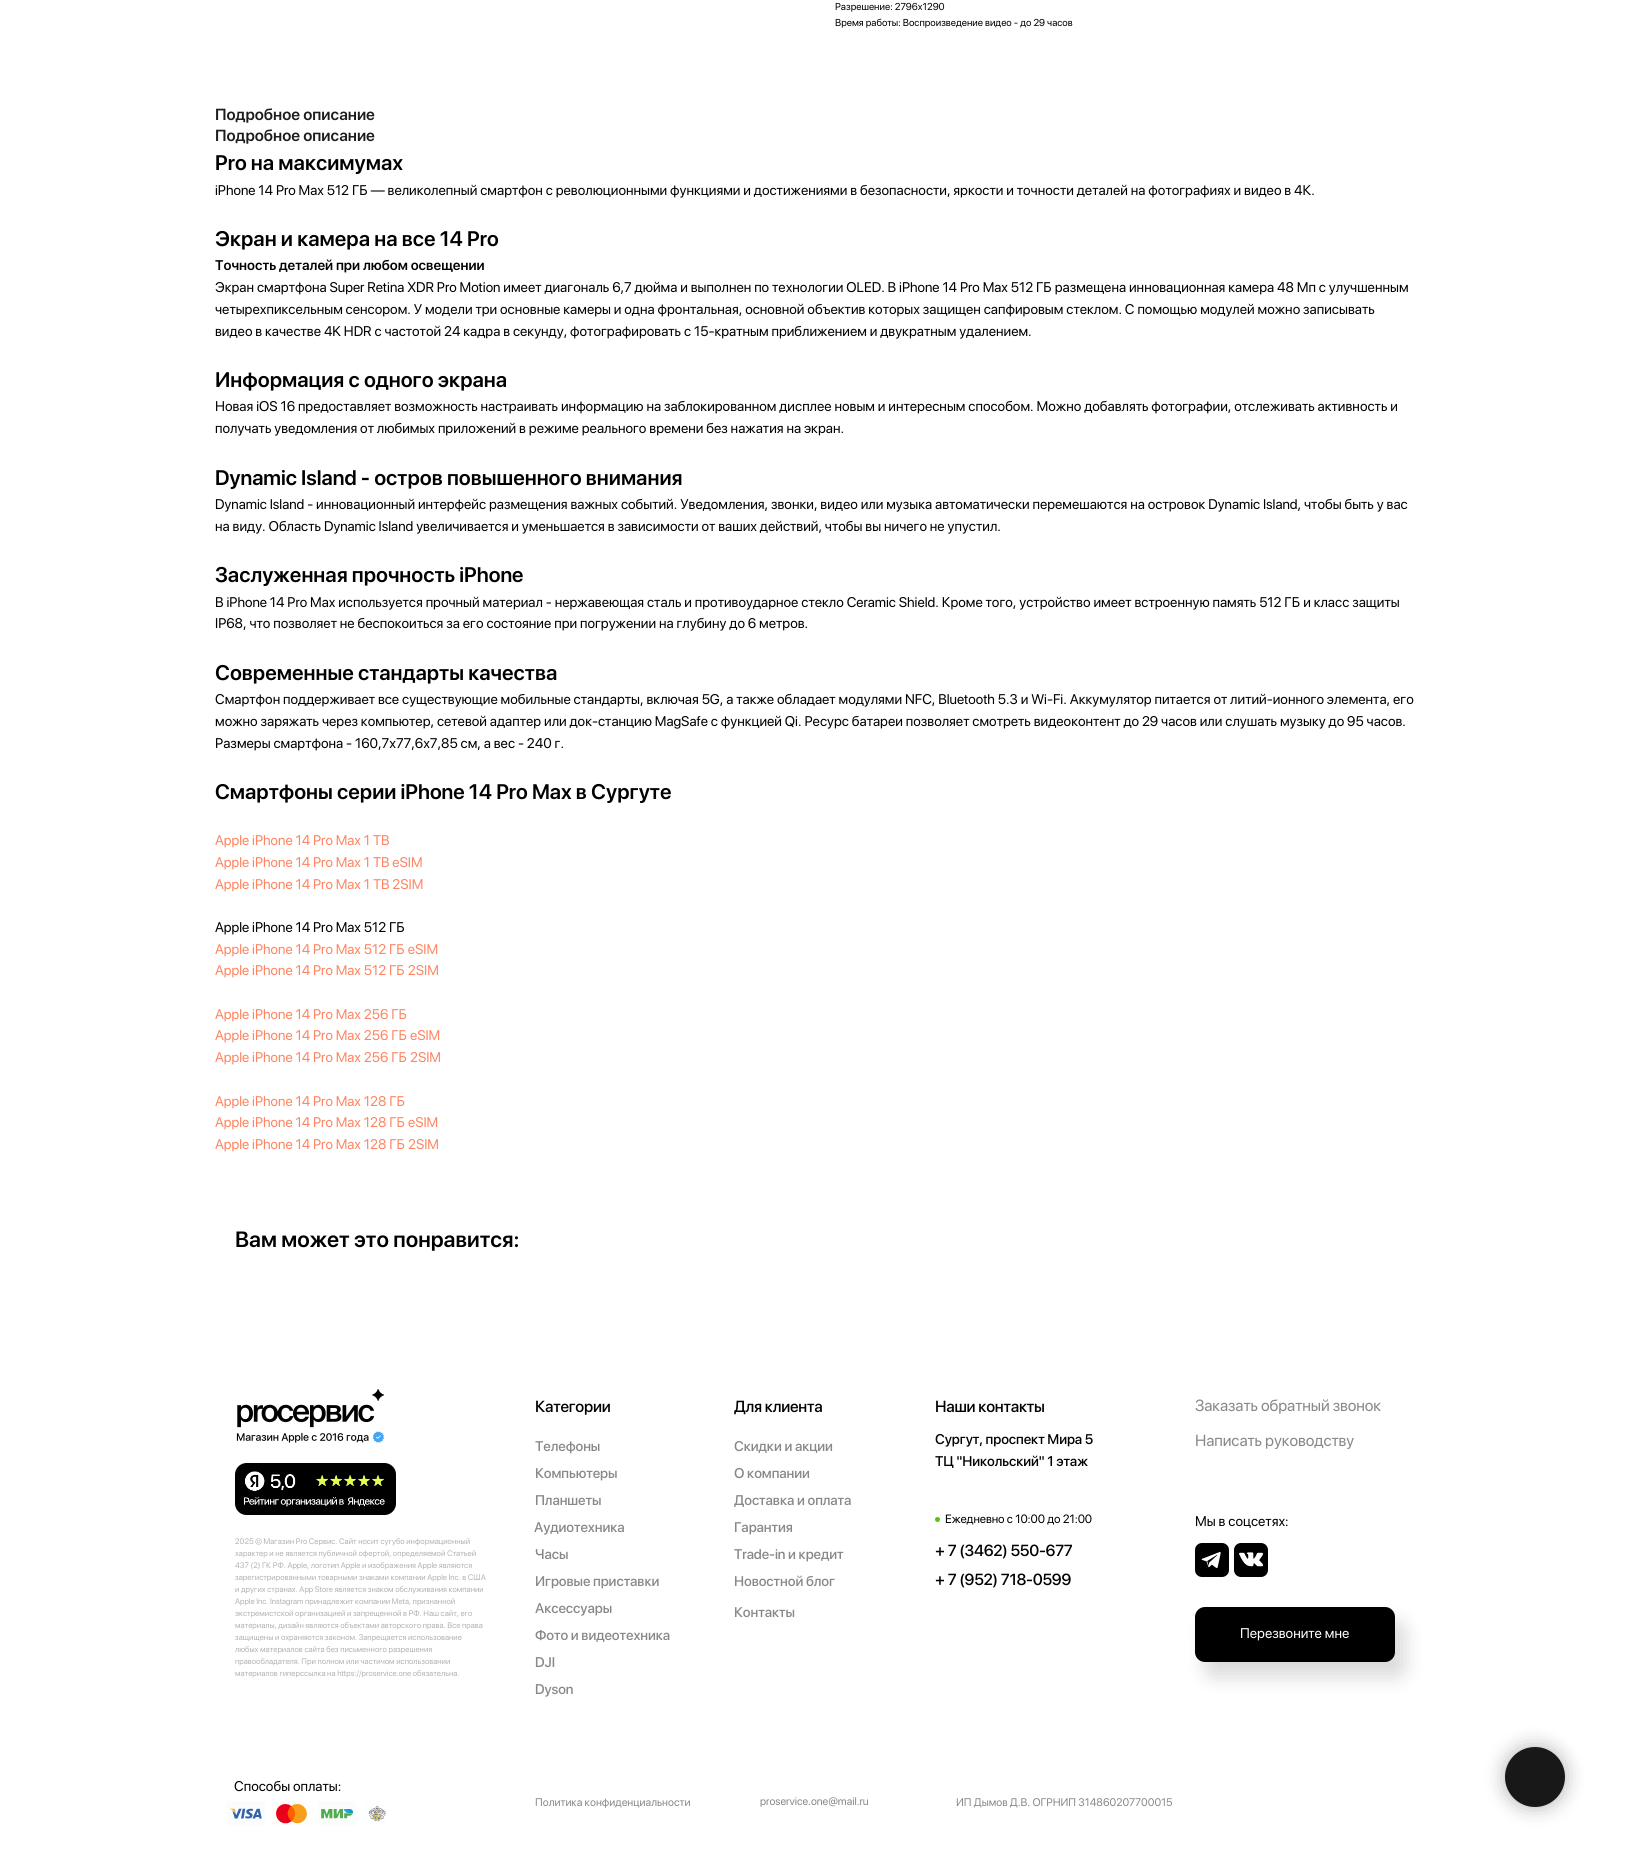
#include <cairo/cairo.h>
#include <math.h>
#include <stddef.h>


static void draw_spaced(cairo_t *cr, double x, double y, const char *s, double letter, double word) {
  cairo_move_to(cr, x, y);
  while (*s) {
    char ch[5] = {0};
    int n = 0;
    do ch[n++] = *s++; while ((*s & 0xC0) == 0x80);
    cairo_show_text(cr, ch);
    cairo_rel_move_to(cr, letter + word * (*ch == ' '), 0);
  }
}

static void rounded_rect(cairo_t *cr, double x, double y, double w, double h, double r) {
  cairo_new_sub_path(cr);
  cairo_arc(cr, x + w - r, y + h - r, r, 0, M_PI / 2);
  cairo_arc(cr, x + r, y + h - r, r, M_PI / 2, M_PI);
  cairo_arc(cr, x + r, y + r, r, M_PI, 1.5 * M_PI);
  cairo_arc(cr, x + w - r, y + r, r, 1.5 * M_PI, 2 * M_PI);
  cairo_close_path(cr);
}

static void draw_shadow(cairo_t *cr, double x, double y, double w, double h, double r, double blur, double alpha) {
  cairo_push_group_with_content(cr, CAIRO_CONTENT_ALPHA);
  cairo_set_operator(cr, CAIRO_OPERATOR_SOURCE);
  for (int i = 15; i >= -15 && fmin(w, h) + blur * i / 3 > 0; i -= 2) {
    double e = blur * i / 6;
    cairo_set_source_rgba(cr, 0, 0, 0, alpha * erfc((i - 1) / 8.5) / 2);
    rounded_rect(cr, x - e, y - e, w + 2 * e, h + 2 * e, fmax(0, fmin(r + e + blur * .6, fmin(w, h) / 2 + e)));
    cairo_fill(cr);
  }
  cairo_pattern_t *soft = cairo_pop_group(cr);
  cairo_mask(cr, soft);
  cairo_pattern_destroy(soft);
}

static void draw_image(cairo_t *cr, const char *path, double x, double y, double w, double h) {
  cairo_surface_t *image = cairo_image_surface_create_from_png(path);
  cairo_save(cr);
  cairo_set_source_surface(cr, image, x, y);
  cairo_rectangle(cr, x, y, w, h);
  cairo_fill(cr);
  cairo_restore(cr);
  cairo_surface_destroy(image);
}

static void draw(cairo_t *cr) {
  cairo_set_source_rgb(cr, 1, 1, 1);
  cairo_paint(cr);
  draw_image(cr, "images/1.png", 236, 1389, 149, 54);
  draw_image(cr, "images/2.png", 235, 1463, 161, 52);
  cairo_set_source_rgb(cr, 84 / 255.0, 198 / 255.0, 10 / 255.0);
  cairo_arc(cr, 937.5, 1519.5, 2.5, 0, 2 * M_PI);
  cairo_fill(cr);
  draw_image(cr, "images/3.png", 1195, 1543, 34, 34);
  draw_image(cr, "images/4.png", 1234, 1543, 34, 34);
  cairo_set_source_rgb(cr, 0, 0, 0);
  draw_shadow(cr, 1205, 1622, 200, 55, 10, 10, 0.15);
  cairo_set_source_rgb(cr, 0, 0, 0);
  rounded_rect(cr, 1195, 1607, 200, 55, 10);
  cairo_fill(cr);
  draw_image(cr, "images/5.png", 227, 1801, 159, 25);
  cairo_set_source_rgb(cr, 0, 0, 0);
  draw_shadow(cr, 1505, 1747, 60, 60, 30, 10, 0.3);
  cairo_set_source_rgb(cr, 24 / 255.0, 24 / 255.0, 24 / 255.0);
  cairo_arc(cr, 1535, 1777, 30, 0, 2 * M_PI);
  cairo_fill(cr);
  cairo_select_font_face(cr, "SF Pro Display", CAIRO_FONT_SLANT_NORMAL, CAIRO_FONT_WEIGHT_NORMAL);
  cairo_set_font_size(cr, 10);
  cairo_set_source_rgb(cr, 0, 0, 0);
  cairo_move_to(cr, 835, 10);
  cairo_show_text(cr, "Разрешение: 2796x1290");
  cairo_move_to(cr, 835, 26);
  cairo_show_text(cr, "Время работы: Воспроизведение видео - до 29 часов");
  cairo_select_font_face(cr, "SF Pro Display SemiBold", CAIRO_FONT_SLANT_NORMAL, CAIRO_FONT_WEIGHT_NORMAL);
  cairo_set_font_size(cr, 16);
  cairo_set_source_rgb(cr, 29 / 255.0, 29 / 255.0, 31 / 255.0);
  cairo_move_to(cr, 215, 120);
  cairo_show_text(cr, "Подробное описание");
  cairo_move_to(cr, 215, 141);
  cairo_show_text(cr, "Подробное описание");
  cairo_set_font_size(cr, 21);
  cairo_set_source_rgb(cr, 0, 0, 0);
  cairo_move_to(cr, 215, 170);
  cairo_show_text(cr, "Pro на максимумах");
  cairo_select_font_face(cr, "SF Pro Display", CAIRO_FONT_SLANT_NORMAL, CAIRO_FONT_WEIGHT_NORMAL);
  cairo_set_font_size(cr, 14);
  cairo_move_to(cr, 215, 195);
  cairo_show_text(cr, "iPhone 14 Pro Max 512 ГБ — великолепный смартфон с революционными функциями и достижениями в безопасности, яркости и точности деталей на фотографиях и видео в 4К.");
  cairo_select_font_face(cr, "SF Pro Display SemiBold", CAIRO_FONT_SLANT_NORMAL, CAIRO_FONT_WEIGHT_NORMAL);
  cairo_set_font_size(cr, 21);
  cairo_move_to(cr, 215, 246);
  cairo_show_text(cr, "Экран и камера на все 14 Pro");
  cairo_set_font_size(cr, 14);
  cairo_move_to(cr, 215, 270);
  cairo_show_text(cr, "Точность деталей при любом освещении");
  cairo_select_font_face(cr, "SF Pro Display", CAIRO_FONT_SLANT_NORMAL, CAIRO_FONT_WEIGHT_NORMAL);
  cairo_move_to(cr, 215, 292);
  cairo_show_text(cr, "Экран смартфона Super Retina XDR Pro Motion имеет диагональ 6,7 дюйма и выполнен по технологии OLED. В iPhone 14 Pro Max 512 ГБ размещена инновационная камера 48 Мп с улучшенным");
  cairo_move_to(cr, 215, 314);
  cairo_show_text(cr, "четырехпиксельным сенсором. У модели три основные камеры и одна фронтальная, основной объектив которых защищен сапфировым стеклом. С помощью модулей можно записывать");
  cairo_move_to(cr, 215, 336);
  cairo_show_text(cr, "видео в качестве 4K HDR с частотой 24 кадра в секунду, фотографировать с 15-кратным приближением и двукратным удалением.");
  cairo_select_font_face(cr, "SF Pro Display SemiBold", CAIRO_FONT_SLANT_NORMAL, CAIRO_FONT_WEIGHT_NORMAL);
  cairo_set_font_size(cr, 21);
  cairo_move_to(cr, 215, 387);
  cairo_show_text(cr, "Информация с одного экрана");
  cairo_select_font_face(cr, "SF Pro Display", CAIRO_FONT_SLANT_NORMAL, CAIRO_FONT_WEIGHT_NORMAL);
  cairo_set_font_size(cr, 14);
  cairo_move_to(cr, 215, 411);
  cairo_show_text(cr, "Новая iOS 16 предоставляет возможность настраивать информацию на заблокированном дисплее новым и интересным способом. Можно добавлять фотографии, отслеживать активность и");
  cairo_move_to(cr, 215, 433);
  cairo_show_text(cr, "получать уведомления от любимых приложений в режиме реального времени без нажатия на экран.");
  cairo_select_font_face(cr, "SF Pro Display SemiBold", CAIRO_FONT_SLANT_NORMAL, CAIRO_FONT_WEIGHT_NORMAL);
  cairo_set_font_size(cr, 21);
  cairo_move_to(cr, 215, 485);
  cairo_show_text(cr, "Dynamic Island - остров повышенного внимания");
  cairo_select_font_face(cr, "SF Pro Display", CAIRO_FONT_SLANT_NORMAL, CAIRO_FONT_WEIGHT_NORMAL);
  cairo_set_font_size(cr, 14);
  cairo_move_to(cr, 215, 509);
  cairo_show_text(cr, "Dynamic Island - инновационный интерфейс размещения важных событий. Уведомления, звонки, видео или музыка автоматически перемешаются на островок Dynamic Island, чтобы быть у вас");
  cairo_move_to(cr, 215, 531);
  cairo_show_text(cr, "на виду. Область Dynamic Island увеличивается и уменьшается в зависимости от ваших действий, чтобы вы ничего не упустил.");
  cairo_select_font_face(cr, "SF Pro Display SemiBold", CAIRO_FONT_SLANT_NORMAL, CAIRO_FONT_WEIGHT_NORMAL);
  cairo_set_font_size(cr, 21);
  cairo_move_to(cr, 215, 582);
  cairo_show_text(cr, "Заслуженная прочность iPhone");
  cairo_select_font_face(cr, "SF Pro Display", CAIRO_FONT_SLANT_NORMAL, CAIRO_FONT_WEIGHT_NORMAL);
  cairo_set_font_size(cr, 14);
  cairo_move_to(cr, 215, 607);
  cairo_show_text(cr, "В iPhone 14 Pro Max используется прочный материал - нержавеющая сталь и противоударное стекло Ceramic Shield. Кроме того, устройство имеет встроенную память 512 ГБ и класс защиты");
  cairo_move_to(cr, 215, 628);
  cairo_show_text(cr, "IP68, что позволяет не беспокоиться за его состояние при погружении на глубину до 6 метров.");
  cairo_select_font_face(cr, "SF Pro Display SemiBold", CAIRO_FONT_SLANT_NORMAL, CAIRO_FONT_WEIGHT_NORMAL);
  cairo_set_font_size(cr, 21);
  cairo_move_to(cr, 215, 680);
  cairo_show_text(cr, "Современные стандарты качества");
  cairo_select_font_face(cr, "SF Pro Display", CAIRO_FONT_SLANT_NORMAL, CAIRO_FONT_WEIGHT_NORMAL);
  cairo_set_font_size(cr, 14);
  cairo_move_to(cr, 215, 704);
  cairo_show_text(cr, "Смартфон поддерживает все существующие мобильные стандарты, включая 5G, а также обладает модулями NFC, Bluetooth 5.3 и Wi-Fi. Аккумулятор питается от литий-ионного элемента, его");
  cairo_move_to(cr, 215, 726);
  cairo_show_text(cr, "можно заряжать через компьютер, сетевой адаптер или док-станцию MagSafe с функцией Qi. Ресурс батареи позволяет смотреть видеоконтент до 29 часов или слушать музыку до 95 часов.");
  cairo_move_to(cr, 215, 748);
  cairo_show_text(cr, "Размеры смартфона - 160,7х77,6х7,85 см, а вес - 240 г.");
  cairo_select_font_face(cr, "SF Pro Display SemiBold", CAIRO_FONT_SLANT_NORMAL, CAIRO_FONT_WEIGHT_NORMAL);
  cairo_set_font_size(cr, 21);
  cairo_move_to(cr, 215, 799);
  cairo_show_text(cr, "Cмартфоны серии iPhone 14 Pro Max в Сургуте");
  cairo_select_font_face(cr, "SF Pro Display", CAIRO_FONT_SLANT_NORMAL, CAIRO_FONT_WEIGHT_NORMAL);
  cairo_set_font_size(cr, 14);
  cairo_set_source_rgb(cr, 1, 133 / 255.0, 98 / 255.0);
  cairo_move_to(cr, 215, 845);
  cairo_show_text(cr, "Apple iPhone 14 Pro Max 1 TB");
  cairo_move_to(cr, 215, 867);
  cairo_show_text(cr, "Apple iPhone 14 Pro Max 1 TB eSIM");
  cairo_move_to(cr, 215, 889);
  cairo_show_text(cr, "Apple iPhone 14 Pro Max 1 TB 2SIM");
  cairo_set_source_rgb(cr, 0, 0, 0);
  cairo_move_to(cr, 215, 932);
  cairo_show_text(cr, "Apple iPhone 14 Pro Max 512 ГБ");
  cairo_set_source_rgb(cr, 1, 133 / 255.0, 98 / 255.0);
  cairo_move_to(cr, 215, 954);
  cairo_show_text(cr, "Apple iPhone 14 Pro Max 512 ГБ eSIM");
  cairo_move_to(cr, 215, 975);
  cairo_show_text(cr, "Apple iPhone 14 Pro Max 512 ГБ 2SIM");
  cairo_move_to(cr, 215, 1019);
  cairo_show_text(cr, "Apple iPhone 14 Pro Max 256 ГБ");
  cairo_move_to(cr, 215, 1040);
  cairo_show_text(cr, "Apple iPhone 14 Pro Max 256 ГБ eSIM");
  cairo_move_to(cr, 215, 1062);
  cairo_show_text(cr, "Apple iPhone 14 Pro Max 256 ГБ 2SIM");
  cairo_move_to(cr, 215, 1106);
  cairo_show_text(cr, "Apple iPhone 14 Pro Max 128 ГБ");
  cairo_move_to(cr, 215, 1127);
  cairo_show_text(cr, "Apple iPhone 14 Pro Max 128 ГБ eSIM");
  cairo_move_to(cr, 215, 1149);
  cairo_show_text(cr, "Apple iPhone 14 Pro Max 128 ГБ 2SIM");
  cairo_select_font_face(cr, "SF Pro Display SemiBold", CAIRO_FONT_SLANT_NORMAL, CAIRO_FONT_WEIGHT_NORMAL);
  cairo_set_font_size(cr, 22);
  cairo_set_source_rgb(cr, 0, 0, 0);
  cairo_move_to(cr, 235, 1247);
  cairo_show_text(cr, "Вам может это понравится:");
  cairo_select_font_face(cr, "SF Pro Display Medium", CAIRO_FONT_SLANT_NORMAL, CAIRO_FONT_WEIGHT_NORMAL);
  cairo_set_font_size(cr, 16);
  draw_spaced(cr, 535, 1412, "Категории", -0.25, 0);
  draw_spaced(cr, 734, 1412, "Для клиента", -0.25, 0);
  draw_spaced(cr, 935, 1412, "Наши контакты", -0.25, 0);
  cairo_select_font_face(cr, "SF Pro Display", CAIRO_FONT_SLANT_NORMAL, CAIRO_FONT_WEIGHT_NORMAL);
  cairo_set_source_rgb(cr, 136 / 255.0, 136 / 255.0, 136 / 255.0);
  draw_spaced(cr, 1195, 1411, "Заказать обратный звонок", -0.1, 0);
  cairo_select_font_face(cr, "SF Pro Display Medium", CAIRO_FONT_SLANT_NORMAL, CAIRO_FONT_WEIGHT_NORMAL);
  cairo_set_font_size(cr, 14);
  draw_spaced(cr, 535, 1451, "Телефоны", -0.1, 0);
  draw_spaced(cr, 734, 1451, "Скидки и акции", -0.1, 0);
  cairo_set_source_rgb(cr, 0, 0, 0);
  draw_spaced(cr, 935, 1444, "Сургут, проспект Мира 5", -0.1, 0);
  draw_spaced(cr, 935, 1466, "ТЦ \"Никольский\" 1 этаж", -0.1, 0);
  cairo_select_font_face(cr, "SF Pro Display", CAIRO_FONT_SLANT_NORMAL, CAIRO_FONT_WEIGHT_NORMAL);
  cairo_set_font_size(cr, 16);
  cairo_set_source_rgb(cr, 136 / 255.0, 136 / 255.0, 136 / 255.0);
  draw_spaced(cr, 1195, 1446, "Написать руководству", -0.1, 0);
  cairo_select_font_face(cr, "SF Pro Display Medium", CAIRO_FONT_SLANT_NORMAL, CAIRO_FONT_WEIGHT_NORMAL);
  cairo_set_font_size(cr, 14);
  draw_spaced(cr, 535, 1478, "Компьютеры", -0.1, 0);
  draw_spaced(cr, 734, 1478, "О компании", -0.1, 0);
  draw_spaced(cr, 535, 1505, "Планшеты", -0.1, 0);
  draw_spaced(cr, 734, 1505, "Доставка и оплата", -0.1, 0);
  cairo_select_font_face(cr, "SF Pro Display", CAIRO_FONT_SLANT_NORMAL, CAIRO_FONT_WEIGHT_NORMAL);
  cairo_set_font_size(cr, 12);
  cairo_set_source_rgb(cr, 0, 0, 0);
  draw_spaced(cr, 945, 1523, "Ежедневно с 10:00 до 21:00", -0.1, 0);
  cairo_set_font_size(cr, 14);
  cairo_move_to(cr, 1195, 1526);
  cairo_show_text(cr, "Мы в соцсетях:");
  cairo_select_font_face(cr, "SF Pro Display Medium", CAIRO_FONT_SLANT_NORMAL, CAIRO_FONT_WEIGHT_NORMAL);
  cairo_set_source_rgb(cr, 136 / 255.0, 136 / 255.0, 136 / 255.0);
  draw_spaced(cr, 534, 1532, "Аудиотехника", -0.1, 0);
  draw_spaced(cr, 734, 1532, "Гарантия", -0.1, 0);
  cairo_select_font_face(cr, "SF Pro Display", CAIRO_FONT_SLANT_NORMAL, CAIRO_FONT_WEIGHT_NORMAL);
  cairo_set_font_size(cr, 8);
  cairo_set_source_rgb(cr, 179 / 255.0, 179 / 255.0, 179 / 255.0);
  cairo_move_to(cr, 235, 1544);
  cairo_show_text(cr, "2025 © Магазин Pro Сервис. Сайт носит сугубо информационный");
  cairo_move_to(cr, 235, 1556);
  cairo_show_text(cr, "характер и не является публичной офертой, определяемой Статьей");
  cairo_move_to(cr, 235, 1568);
  cairo_show_text(cr, "437 (2) ГК РФ. Apple, логотип Apple и изображения Apple являются");
  cairo_move_to(cr, 235, 1580);
  cairo_show_text(cr, "зарегистрированными товарными знаками компании Apple Inc. в США");
  cairo_move_to(cr, 235, 1592);
  cairo_show_text(cr, "и других странах. App Store является знаком обслуживания компании");
  cairo_move_to(cr, 235, 1604);
  cairo_show_text(cr, "Apple Inc. Instagram принадлежит компании Meta, признанной");
  cairo_move_to(cr, 235, 1616);
  cairo_show_text(cr, "экстремистской организацией и запрещенной в РФ. Наш сайт, его");
  cairo_move_to(cr, 235, 1628);
  cairo_show_text(cr, "материалы, дизайн являются объектами авторского права. Все права");
  cairo_move_to(cr, 235, 1640);
  cairo_show_text(cr, "защищены и охраняются законом. Запрещается использование");
  cairo_move_to(cr, 235, 1652);
  cairo_show_text(cr, "любых материалов сайта без письменного разрешения");
  cairo_move_to(cr, 235, 1664);
  cairo_show_text(cr, "правообладателя. При полном или частичом использовании");
  cairo_move_to(cr, 235, 1676);
  cairo_show_text(cr, "материалов гиперссылка на https://proservice.one обязательна.");
  cairo_select_font_face(cr, "SF Pro Display Medium", CAIRO_FONT_SLANT_NORMAL, CAIRO_FONT_WEIGHT_NORMAL);
  cairo_set_font_size(cr, 14);
  cairo_set_source_rgb(cr, 136 / 255.0, 136 / 255.0, 136 / 255.0);
  draw_spaced(cr, 535, 1559, "Часы", -0.1, 0);
  draw_spaced(cr, 734, 1559, "Trade-in и кредит", -0.1, 0);
  cairo_set_font_size(cr, 16);
  cairo_set_source_rgb(cr, 0, 0, 0);
  draw_spaced(cr, 935, 1556, "+ 7 (3462) 550-677", -0.25, 0);
  cairo_set_font_size(cr, 14);
  cairo_set_source_rgb(cr, 136 / 255.0, 136 / 255.0, 136 / 255.0);
  draw_spaced(cr, 535, 1586, "Игровые приставки", -0.1, 0);
  draw_spaced(cr, 734, 1586, "Новостной блог", -0.1, 0);
  cairo_set_font_size(cr, 16);
  cairo_set_source_rgb(cr, 0, 0, 0);
  draw_spaced(cr, 935, 1585, "+ 7 (952) 718-0599", -0.25, 0);
  cairo_set_font_size(cr, 14);
  cairo_set_source_rgb(cr, 136 / 255.0, 136 / 255.0, 136 / 255.0);
  draw_spaced(cr, 535, 1613, "Аксессуары", -0.1, 0);
  draw_spaced(cr, 734, 1617, "Контакты", -0.1, 0);
  draw_spaced(cr, 535, 1640, "Фото и видеотехника", -0.1, 0);
  cairo_select_font_face(cr, "SF Pro Display", CAIRO_FONT_SLANT_NORMAL, CAIRO_FONT_WEIGHT_NORMAL);
  cairo_set_source_rgb(cr, 1, 1, 1);
  cairo_move_to(cr, 1240, 1638);
  cairo_show_text(cr, "Перезвоните мне");
  cairo_select_font_face(cr, "SF Pro Display Medium", CAIRO_FONT_SLANT_NORMAL, CAIRO_FONT_WEIGHT_NORMAL);
  cairo_set_source_rgb(cr, 136 / 255.0, 136 / 255.0, 136 / 255.0);
  draw_spaced(cr, 535, 1667, "DJI", -0.1, 0);
  draw_spaced(cr, 535, 1694, "Dyson", -0.1, 0);
  cairo_select_font_face(cr, "SF Pro Display", CAIRO_FONT_SLANT_NORMAL, CAIRO_FONT_WEIGHT_NORMAL);
  cairo_set_source_rgb(cr, 0, 0, 0);
  cairo_move_to(cr, 234, 1791);
  cairo_show_text(cr, "Способы оплаты:");
  cairo_set_font_size(cr, 11);
  cairo_set_source_rgb(cr, 136 / 255.0, 136 / 255.0, 136 / 255.0);
  cairo_move_to(cr, 535, 1806);
  cairo_show_text(cr, "Политика конфиденциальности");
  cairo_move_to(cr, 760, 1805);
  cairo_show_text(cr, "proservice.one@mail.ru");
  cairo_move_to(cr, 956, 1806);
  cairo_show_text(cr, "ИП Дымов Д.В. ОГРНИП 314860207700015");
}

int main(void) {
  cairo_surface_t *surface = cairo_image_surface_create(CAIRO_FORMAT_RGB24, 1630, 1857);
  cairo_t *cr = cairo_create(surface);
  cairo_font_options_t *options = cairo_font_options_create();
  cairo_font_options_set_hint_metrics(options, CAIRO_HINT_METRICS_OFF);
  cairo_font_options_set_hint_style(options, CAIRO_HINT_STYLE_NONE);
  cairo_set_font_options(cr, options);
  cairo_set_miter_limit(cr, 4);
  draw(cr);
  cairo_surface_write_to_png(surface, "out.png");
  cairo_font_options_destroy(options);
  cairo_destroy(cr);
  cairo_surface_destroy(surface);
  return 0;
}
